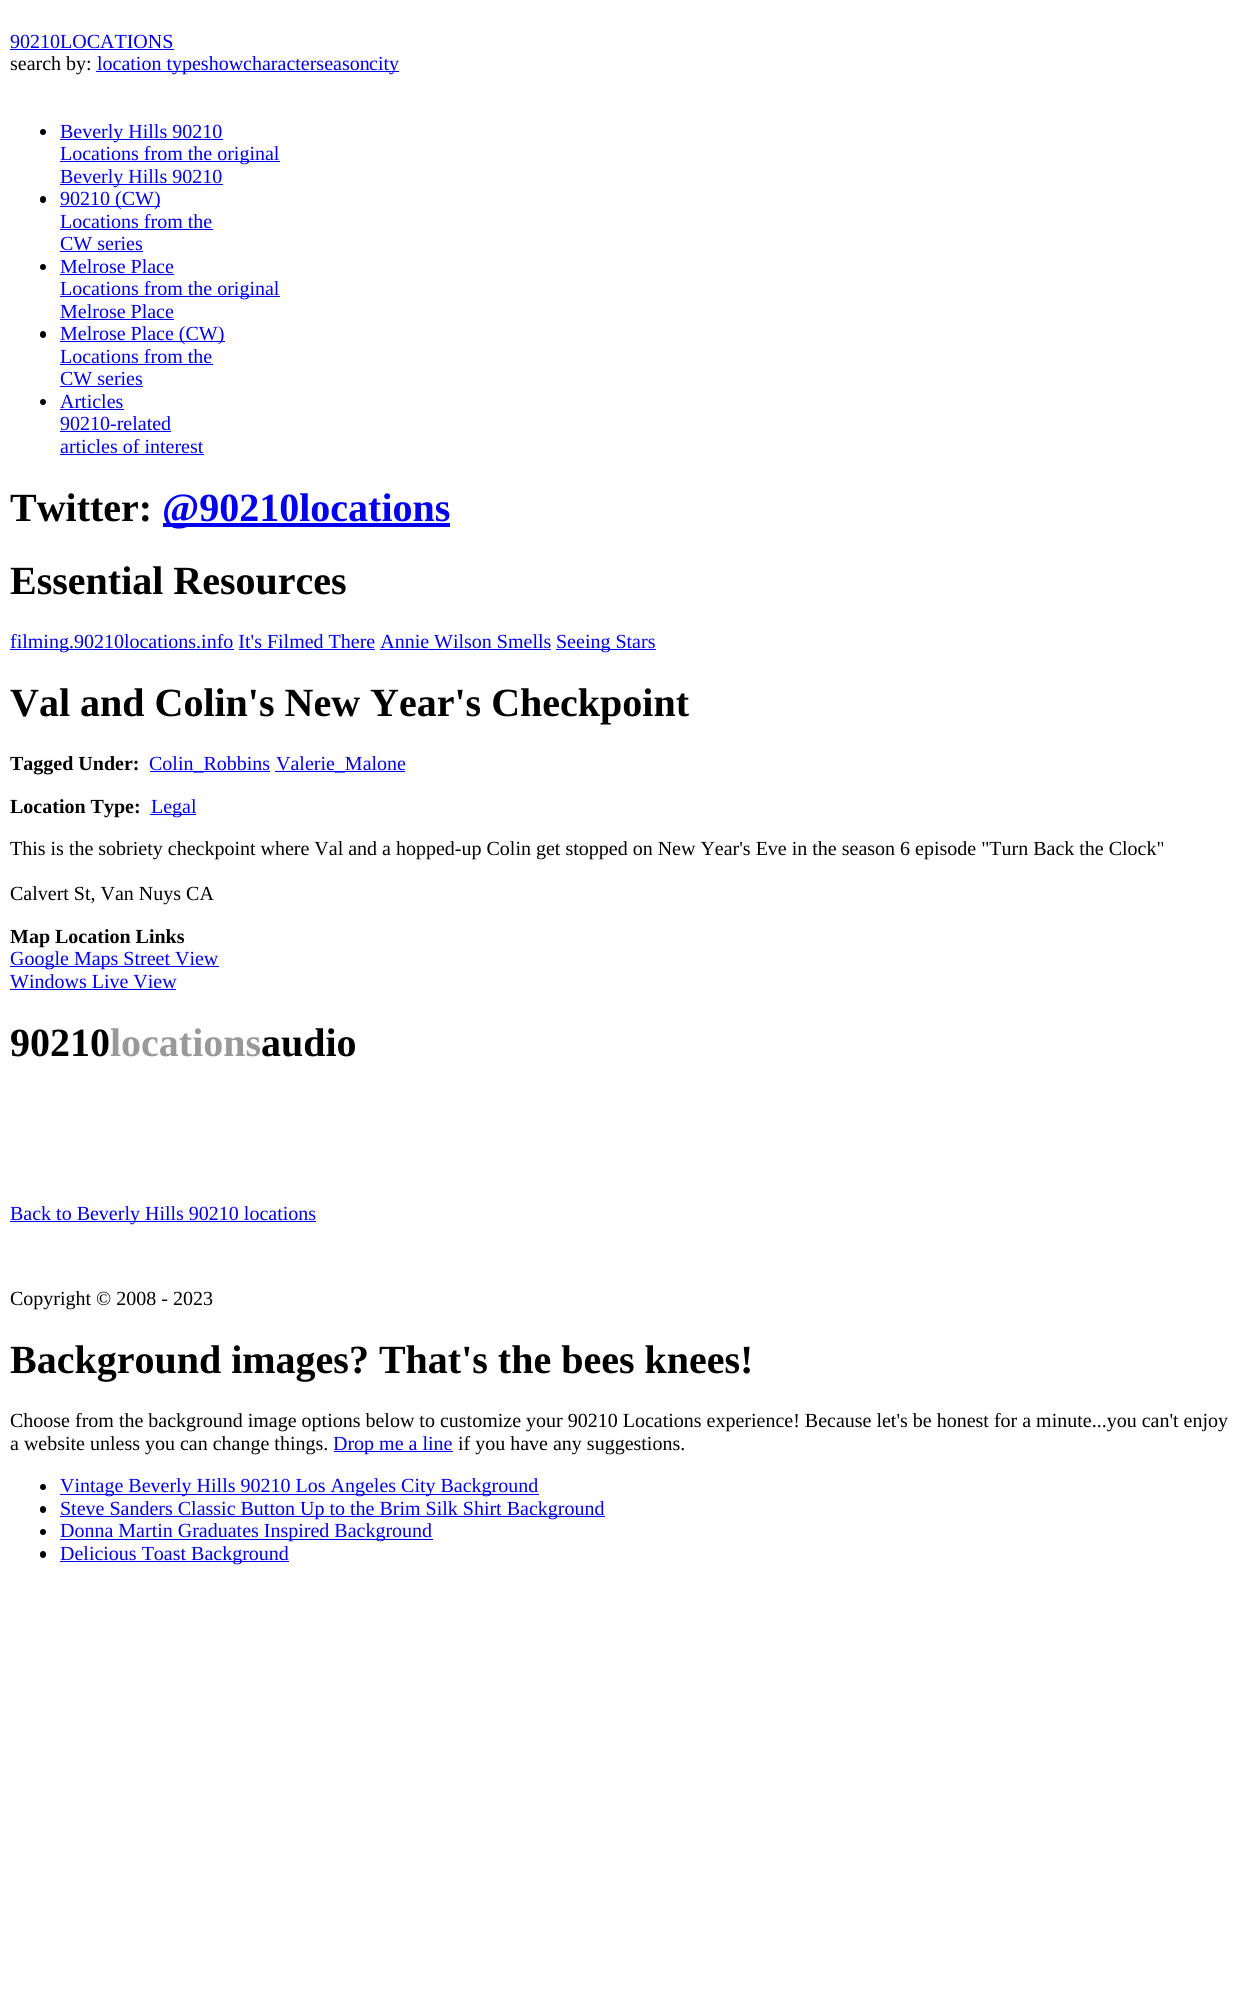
#include <cairo/cairo.h>
#include <math.h>
#include <stddef.h>


static void rounded_rect(cairo_t *cr, double x, double y, double w, double h, double r) {
  cairo_new_sub_path(cr);
  cairo_arc(cr, x + w - r, y + h - r, r, 0, M_PI / 2);
  cairo_arc(cr, x + r, y + h - r, r, M_PI / 2, M_PI);
  cairo_arc(cr, x + r, y + r, r, M_PI, 1.5 * M_PI);
  cairo_arc(cr, x + w - r, y + r, r, 1.5 * M_PI, 2 * M_PI);
  cairo_close_path(cr);
}

static void draw(cairo_t *cr) {
  cairo_set_source_rgb(cr, 1, 1, 1);
  cairo_paint(cr);
  cairo_set_source_rgb(cr, 0, 0, 238 / 255.0);
  cairo_rectangle(cr, 10, 49, 164, 1);
  cairo_fill(cr);
  cairo_rectangle(cr, 96, 71, 273, 1);
  cairo_fill(cr);
  cairo_rectangle(cr, 369, 71, 30, 1);
  cairo_fill(cr);
  cairo_set_source_rgb(cr, 0, 0, 0);
  cairo_arc(cr, 43, 132, 3, 0, 2 * M_PI);
  cairo_fill(cr);
  cairo_set_source_rgb(cr, 0, 0, 238 / 255.0);
  cairo_rectangle(cr, 60, 139, 163, 1);
  cairo_fill(cr);
  cairo_rectangle(cr, 60, 161, 220, 1);
  cairo_fill(cr);
  cairo_rectangle(cr, 60, 184, 163, 1);
  cairo_fill(cr);
  cairo_set_source_rgb(cr, 0, 0, 0);
  rounded_rect(cr, 40, 196, 6, 7, 3);
  cairo_fill(cr);
  cairo_set_source_rgb(cr, 0, 0, 238 / 255.0);
  cairo_rectangle(cr, 60, 206, 100, 1);
  cairo_fill(cr);
  cairo_rectangle(cr, 60, 229, 153, 1);
  cairo_fill(cr);
  cairo_rectangle(cr, 60, 251, 83, 1);
  cairo_fill(cr);
  cairo_set_source_rgb(cr, 0, 0, 0);
  cairo_arc(cr, 43, 267, 3, 0, 2 * M_PI);
  cairo_fill(cr);
  cairo_set_source_rgb(cr, 0, 0, 238 / 255.0);
  cairo_rectangle(cr, 60, 274, 114, 1);
  cairo_fill(cr);
  cairo_rectangle(cr, 60, 296, 220, 1);
  cairo_fill(cr);
  cairo_rectangle(cr, 60, 319, 114, 1);
  cairo_fill(cr);
  cairo_set_source_rgb(cr, 0, 0, 0);
  rounded_rect(cr, 40, 331, 6, 7, 3);
  cairo_fill(cr);
  cairo_set_source_rgb(cr, 0, 0, 238 / 255.0);
  cairo_rectangle(cr, 60, 341, 165, 1);
  cairo_fill(cr);
  cairo_rectangle(cr, 60, 364, 153, 1);
  cairo_fill(cr);
  cairo_rectangle(cr, 60, 386, 83, 1);
  cairo_fill(cr);
  cairo_set_source_rgb(cr, 0, 0, 0);
  cairo_arc(cr, 43, 402, 3, 0, 2 * M_PI);
  cairo_fill(cr);
  cairo_set_source_rgb(cr, 0, 0, 238 / 255.0);
  cairo_rectangle(cr, 60, 409, 64, 1);
  cairo_fill(cr);
  cairo_rectangle(cr, 60, 431, 111, 1);
  cairo_fill(cr);
  cairo_rectangle(cr, 60, 454, 144, 1);
  cairo_fill(cr);
  cairo_rectangle(cr, 163, 523, 287, 4);
  cairo_fill(cr);
  cairo_rectangle(cr, 10, 649, 224, 1);
  cairo_fill(cr);
  cairo_rectangle(cr, 556, 649, 100, 1);
  cairo_fill(cr);
  cairo_rectangle(cr, 239, 649, 136, 1);
  cairo_fill(cr);
  cairo_rectangle(cr, 380, 649, 171, 1);
  cairo_fill(cr);
  cairo_rectangle(cr, 150, 771, 120, 1);
  cairo_fill(cr);
  cairo_rectangle(cr, 275, 771, 130, 1);
  cairo_fill(cr);
  cairo_rectangle(cr, 150, 814, 46, 1);
  cairo_fill(cr);
  cairo_rectangle(cr, 10, 966, 209, 1);
  cairo_fill(cr);
  cairo_rectangle(cr, 10, 989, 166, 1);
  cairo_fill(cr);
  cairo_rectangle(cr, 10, 1221, 306, 1);
  cairo_fill(cr);
  cairo_rectangle(cr, 334, 1451, 119, 1);
  cairo_fill(cr);
  cairo_set_source_rgb(cr, 0, 0, 0);
  cairo_arc(cr, 43, 1487, 3, 0, 2 * M_PI);
  cairo_fill(cr);
  cairo_set_source_rgb(cr, 0, 0, 238 / 255.0);
  cairo_rectangle(cr, 60, 1494, 479, 1);
  cairo_fill(cr);
  cairo_set_source_rgb(cr, 0, 0, 0);
  rounded_rect(cr, 40, 1506, 6, 7, 3);
  cairo_fill(cr);
  cairo_set_source_rgb(cr, 0, 0, 238 / 255.0);
  cairo_rectangle(cr, 60, 1516, 545, 1);
  cairo_fill(cr);
  cairo_set_source_rgb(cr, 0, 0, 0);
  cairo_arc(cr, 43, 1532, 3, 0, 2 * M_PI);
  cairo_fill(cr);
  cairo_set_source_rgb(cr, 0, 0, 238 / 255.0);
  cairo_rectangle(cr, 60, 1539, 373, 1);
  cairo_fill(cr);
  cairo_set_source_rgb(cr, 0, 0, 0);
  rounded_rect(cr, 40, 1551, 6, 7, 3);
  cairo_fill(cr);
  cairo_set_source_rgb(cr, 0, 0, 238 / 255.0);
  cairo_rectangle(cr, 60, 1561, 229, 1);
  cairo_fill(cr);
  cairo_select_font_face(cr, "Liberation Serif", CAIRO_FONT_SLANT_NORMAL, CAIRO_FONT_WEIGHT_NORMAL);
  cairo_set_font_size(cr, 20);
  cairo_move_to(cr, 10, 48);
  cairo_show_text(cr, "90210LOCATIONS");
  cairo_set_source_rgb(cr, 0, 0, 0);
  cairo_move_to(cr, 10, 70);
  cairo_show_text(cr, "search by:");
  cairo_set_source_rgb(cr, 0, 0, 238 / 255.0);
  cairo_move_to(cr, 97, 70);
  cairo_show_text(cr, "location typeshowcharacterseason");
  cairo_move_to(cr, 369, 70);
  cairo_show_text(cr, "city");
  cairo_move_to(cr, 60, 138);
  cairo_show_text(cr, "Beverly Hills 90210");
  cairo_move_to(cr, 60, 160);
  cairo_show_text(cr, "Locations from the original");
  cairo_move_to(cr, 60, 183);
  cairo_show_text(cr, "Beverly Hills 90210");
  cairo_move_to(cr, 60, 205);
  cairo_show_text(cr, "90210 (CW)");
  cairo_move_to(cr, 60, 228);
  cairo_show_text(cr, "Locations from the");
  cairo_move_to(cr, 60, 250);
  cairo_show_text(cr, "CW series");
  cairo_move_to(cr, 60, 273);
  cairo_show_text(cr, "Melrose Place");
  cairo_move_to(cr, 60, 295);
  cairo_show_text(cr, "Locations from the original");
  cairo_move_to(cr, 60, 318);
  cairo_show_text(cr, "Melrose Place");
  cairo_move_to(cr, 60, 340);
  cairo_show_text(cr, "Melrose Place (CW)");
  cairo_move_to(cr, 60, 363);
  cairo_show_text(cr, "Locations from the");
  cairo_move_to(cr, 60, 385);
  cairo_show_text(cr, "CW series");
  cairo_move_to(cr, 60, 408);
  cairo_show_text(cr, "Articles");
  cairo_move_to(cr, 60, 430);
  cairo_show_text(cr, "90210-related");
  cairo_move_to(cr, 60, 453);
  cairo_show_text(cr, "articles of interest");
  cairo_select_font_face(cr, "Liberation Serif", CAIRO_FONT_SLANT_NORMAL, CAIRO_FONT_WEIGHT_BOLD);
  cairo_set_font_size(cr, 40);
  cairo_set_source_rgb(cr, 0, 0, 0);
  cairo_move_to(cr, 10, 521);
  cairo_show_text(cr, "Twitter:");
  cairo_set_source_rgb(cr, 0, 0, 238 / 255.0);
  cairo_move_to(cr, 162, 521);
  cairo_show_text(cr, "@90210locations");
  cairo_set_source_rgb(cr, 0, 0, 0);
  cairo_move_to(cr, 10, 594);
  cairo_show_text(cr, "Essential Resources");
  cairo_select_font_face(cr, "Liberation Serif", CAIRO_FONT_SLANT_NORMAL, CAIRO_FONT_WEIGHT_NORMAL);
  cairo_set_font_size(cr, 20);
  cairo_set_source_rgb(cr, 0, 0, 238 / 255.0);
  cairo_move_to(cr, 10, 648);
  cairo_show_text(cr, "filming.90210locations.info It's Filmed There Annie Wilson Smells");
  cairo_move_to(cr, 556, 648);
  cairo_show_text(cr, "Seeing Stars");
  cairo_select_font_face(cr, "Liberation Serif", CAIRO_FONT_SLANT_NORMAL, CAIRO_FONT_WEIGHT_BOLD);
  cairo_set_font_size(cr, 40);
  cairo_set_source_rgb(cr, 0, 0, 0);
  cairo_move_to(cr, 10, 716);
  cairo_show_text(cr, "Val and Colin's New Year's Checkpoint");
  cairo_set_font_size(cr, 20);
  cairo_move_to(cr, 10, 770);
  cairo_show_text(cr, "Tagged Under:");
  cairo_select_font_face(cr, "Liberation Serif", CAIRO_FONT_SLANT_NORMAL, CAIRO_FONT_WEIGHT_NORMAL);
  cairo_set_source_rgb(cr, 0, 0, 238 / 255.0);
  cairo_move_to(cr, 149, 770);
  cairo_show_text(cr, "Colin_Robbins");
  cairo_move_to(cr, 276, 770);
  cairo_show_text(cr, "Valerie_Malone");
  cairo_select_font_face(cr, "Liberation Serif", CAIRO_FONT_SLANT_NORMAL, CAIRO_FONT_WEIGHT_BOLD);
  cairo_set_source_rgb(cr, 0, 0, 0);
  cairo_move_to(cr, 10, 813);
  cairo_show_text(cr, "Location Type:");
  cairo_select_font_face(cr, "Liberation Serif", CAIRO_FONT_SLANT_NORMAL, CAIRO_FONT_WEIGHT_NORMAL);
  cairo_set_source_rgb(cr, 0, 0, 238 / 255.0);
  cairo_move_to(cr, 151, 813);
  cairo_show_text(cr, "Legal");
  cairo_set_source_rgb(cr, 0, 0, 0);
  cairo_move_to(cr, 10, 855);
  cairo_show_text(cr, "This is the sobriety checkpoint where Val and a hopped-up Colin get stopped on New Year's Eve in the season 6 episode \"Turn Back the Clock\"");
  cairo_move_to(cr, 10, 900);
  cairo_show_text(cr, "Calvert St, Van Nuys CA");
  cairo_select_font_face(cr, "Liberation Serif", CAIRO_FONT_SLANT_NORMAL, CAIRO_FONT_WEIGHT_BOLD);
  cairo_move_to(cr, 10, 943);
  cairo_show_text(cr, "Map Location Links");
  cairo_select_font_face(cr, "Liberation Serif", CAIRO_FONT_SLANT_NORMAL, CAIRO_FONT_WEIGHT_NORMAL);
  cairo_set_source_rgb(cr, 0, 0, 238 / 255.0);
  cairo_move_to(cr, 10, 965);
  cairo_show_text(cr, "Google Maps Street View");
  cairo_move_to(cr, 10, 988);
  cairo_show_text(cr, "Windows Live View");
  cairo_select_font_face(cr, "Liberation Serif", CAIRO_FONT_SLANT_NORMAL, CAIRO_FONT_WEIGHT_BOLD);
  cairo_set_font_size(cr, 40);
  cairo_set_source_rgb(cr, 0, 0, 0);
  cairo_move_to(cr, 10, 1056);
  cairo_show_text(cr, "90210");
  cairo_set_source_rgb(cr, 153 / 255.0, 153 / 255.0, 153 / 255.0);
  cairo_move_to(cr, 110, 1056);
  cairo_show_text(cr, "locations");
  cairo_set_source_rgb(cr, 0, 0, 0);
  cairo_move_to(cr, 261, 1056);
  cairo_show_text(cr, "audio");
  cairo_select_font_face(cr, "Liberation Serif", CAIRO_FONT_SLANT_NORMAL, CAIRO_FONT_WEIGHT_NORMAL);
  cairo_set_font_size(cr, 20);
  cairo_set_source_rgb(cr, 0, 0, 238 / 255.0);
  cairo_move_to(cr, 10, 1220);
  cairo_show_text(cr, "Back to Beverly Hills 90210 locations");
  cairo_set_source_rgb(cr, 0, 0, 0);
  cairo_move_to(cr, 10, 1305);
  cairo_show_text(cr, "Copyright © 2008 - 2023");
  cairo_select_font_face(cr, "Liberation Serif", CAIRO_FONT_SLANT_NORMAL, CAIRO_FONT_WEIGHT_BOLD);
  cairo_set_font_size(cr, 40);
  cairo_move_to(cr, 10, 1373);
  cairo_show_text(cr, "Background images? That's the bees knees!");
  cairo_select_font_face(cr, "Liberation Serif", CAIRO_FONT_SLANT_NORMAL, CAIRO_FONT_WEIGHT_NORMAL);
  cairo_set_font_size(cr, 20);
  cairo_move_to(cr, 10, 1427);
  cairo_show_text(cr, "Choose from the background image options below to customize your 90210 Locations experience! Because let's be honest for a minute...you can't enjoy");
  cairo_move_to(cr, 10, 1450);
  cairo_show_text(cr, "a website unless you can change things.");
  cairo_set_source_rgb(cr, 0, 0, 238 / 255.0);
  cairo_move_to(cr, 333, 1450);
  cairo_show_text(cr, "Drop me a line");
  cairo_set_source_rgb(cr, 0, 0, 0);
  cairo_move_to(cr, 458, 1450);
  cairo_show_text(cr, "if you have any suggestions.");
  cairo_set_source_rgb(cr, 0, 0, 238 / 255.0);
  cairo_move_to(cr, 60, 1492);
  cairo_show_text(cr, "Vintage Beverly Hills 90210 Los Angeles City Background");
  cairo_move_to(cr, 60, 1515);
  cairo_show_text(cr, "Steve Sanders Classic Button Up to the Brim Silk Shirt Background");
  cairo_move_to(cr, 60, 1537);
  cairo_show_text(cr, "Donna Martin Graduates Inspired Background");
  cairo_move_to(cr, 60, 1560);
  cairo_show_text(cr, "Delicious Toast Background");
}

int main(void) {
  cairo_surface_t *surface = cairo_image_surface_create(CAIRO_FORMAT_RGB24, 1244, 2008);
  cairo_t *cr = cairo_create(surface);
  cairo_font_options_t *options = cairo_font_options_create();
  cairo_font_options_set_hint_metrics(options, CAIRO_HINT_METRICS_OFF);
  cairo_font_options_set_hint_style(options, CAIRO_HINT_STYLE_NONE);
  cairo_set_font_options(cr, options);
  cairo_set_miter_limit(cr, 4);
  draw(cr);
  cairo_surface_write_to_png(surface, "out.png");
  cairo_font_options_destroy(options);
  cairo_destroy(cr);
  cairo_surface_destroy(surface);
  return 0;
}
